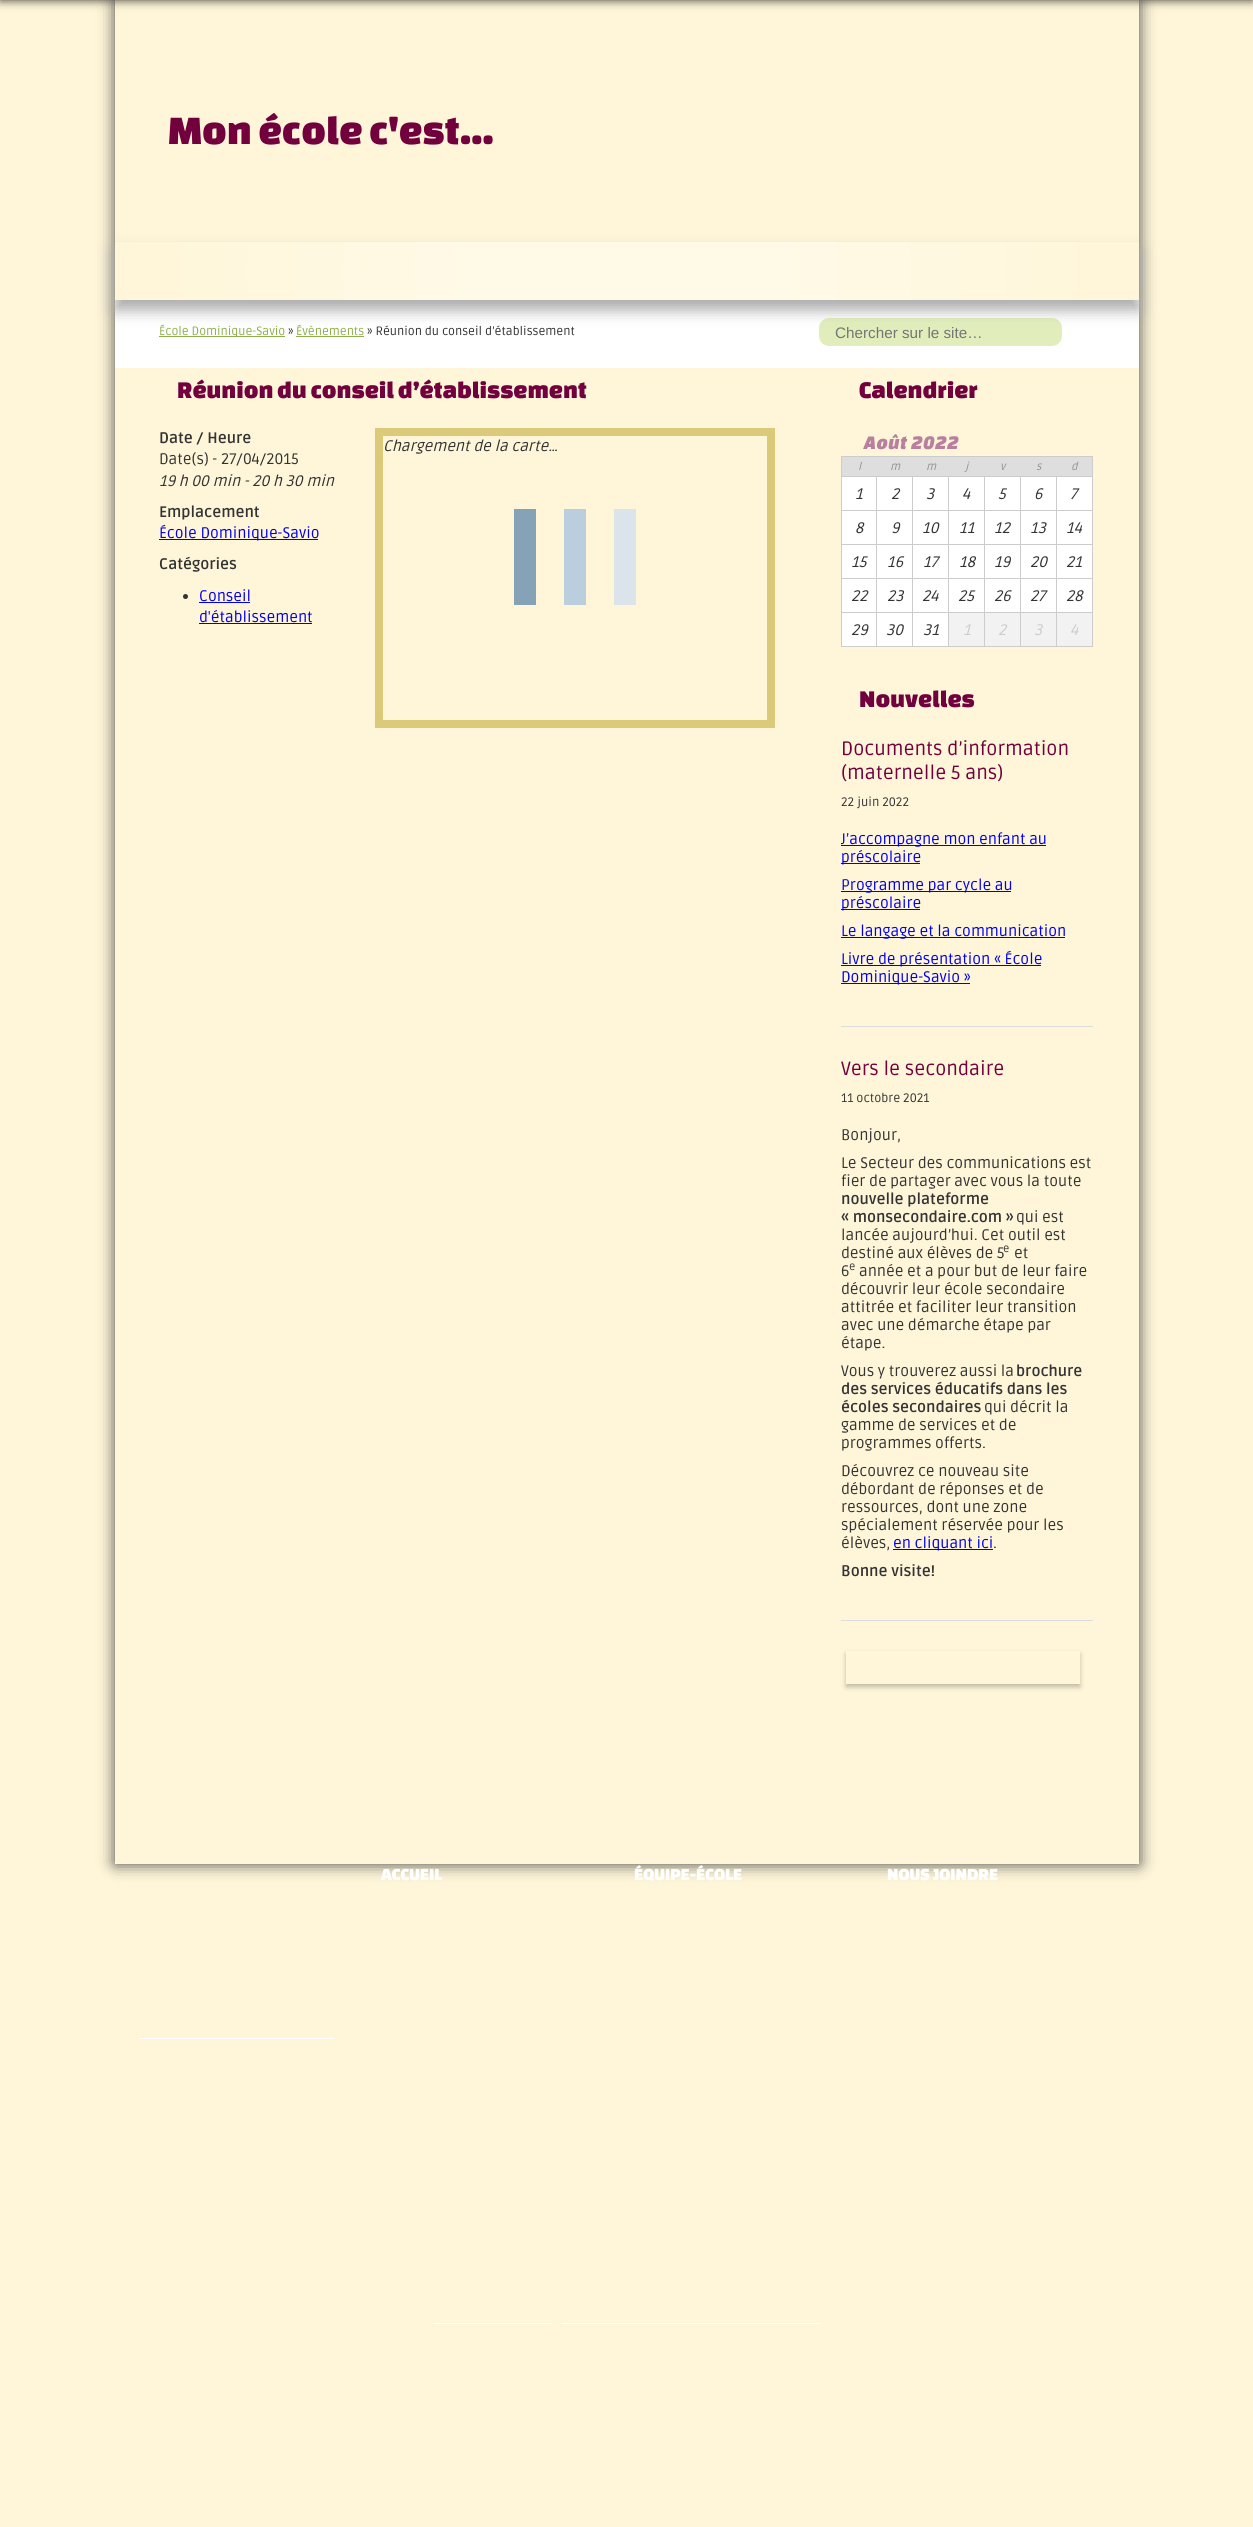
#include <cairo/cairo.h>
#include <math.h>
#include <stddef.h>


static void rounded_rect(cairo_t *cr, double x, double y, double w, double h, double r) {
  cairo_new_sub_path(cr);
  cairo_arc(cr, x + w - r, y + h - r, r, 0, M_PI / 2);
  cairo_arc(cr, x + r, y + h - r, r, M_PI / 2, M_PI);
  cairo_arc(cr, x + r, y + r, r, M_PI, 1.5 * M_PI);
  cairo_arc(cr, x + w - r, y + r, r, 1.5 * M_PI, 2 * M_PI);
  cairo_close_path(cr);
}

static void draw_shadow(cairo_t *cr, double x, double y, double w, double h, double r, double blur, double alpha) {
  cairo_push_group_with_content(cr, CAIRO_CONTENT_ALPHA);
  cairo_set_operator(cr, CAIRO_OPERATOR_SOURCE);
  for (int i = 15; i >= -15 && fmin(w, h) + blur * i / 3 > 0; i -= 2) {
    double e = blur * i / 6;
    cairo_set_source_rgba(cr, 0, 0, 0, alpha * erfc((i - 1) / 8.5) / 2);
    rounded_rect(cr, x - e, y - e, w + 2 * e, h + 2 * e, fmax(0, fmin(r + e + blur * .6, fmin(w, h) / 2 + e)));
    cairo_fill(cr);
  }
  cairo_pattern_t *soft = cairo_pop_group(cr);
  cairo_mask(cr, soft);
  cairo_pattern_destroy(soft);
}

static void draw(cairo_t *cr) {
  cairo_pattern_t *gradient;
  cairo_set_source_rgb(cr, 1, 246 / 255.0, 217 / 255.0);
  cairo_paint(cr);
  cairo_set_source_rgb(cr, 0, 0, 0);
  draw_shadow(cr, 0, -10, 1253, 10, 0, 5, 0.8);
  cairo_save(cr);
  cairo_set_fill_rule(cr, CAIRO_FILL_RULE_EVEN_ODD);
  cairo_new_path(cr);
  cairo_move_to(cr, 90, 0);
  cairo_line_to(cr, 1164, 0);
  cairo_line_to(cr, 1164, 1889);
  cairo_line_to(cr, 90, 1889);
  cairo_close_path(cr);
  cairo_move_to(cr, 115, 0);
  cairo_line_to(cr, 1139, 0);
  cairo_line_to(cr, 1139, 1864);
  cairo_line_to(cr, 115, 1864);
  cairo_close_path(cr);
  cairo_clip(cr);
  cairo_set_source_rgb(cr, 68 / 255.0, 68 / 255.0, 68 / 255.0);
  draw_shadow(cr, 115, 0, 1024, 1864, 0, 8, 1);
  cairo_restore(cr);
  cairo_set_source_rgb(cr, 1, 1, 1);
  cairo_rectangle(cr, 115, 300, 1024, 68);
  cairo_fill(cr);
  cairo_set_source_rgb(cr, 225 / 255.0, 238 / 255.0, 187 / 255.0);
  cairo_new_path(cr);
  cairo_move_to(cr, 829, 318);
  cairo_line_to(cr, 1034, 318);
  cairo_line_to(cr, 1034, 346);
  cairo_line_to(cr, 829, 346);
  cairo_curve_to(cr, 823.5, 346, 819, 341.5, 819, 336);
  cairo_line_to(cr, 819, 328);
  cairo_curve_to(cr, 819, 322.5, 823.5, 318, 829, 318);
  cairo_close_path(cr);
  cairo_fill(cr);
  cairo_new_path(cr);
  cairo_move_to(cr, 1022, 318);
  cairo_line_to(cr, 1052, 318);
  cairo_curve_to(cr, 1057.5, 318, 1062, 322.5, 1062, 328);
  cairo_line_to(cr, 1062, 336);
  cairo_curve_to(cr, 1062, 341.5, 1057.5, 346, 1052, 346);
  cairo_line_to(cr, 1022, 346);
  cairo_close_path(cr);
  cairo_fill(cr);
  cairo_set_source_rgb(cr, 170 / 255.0, 170 / 255.0, 170 / 255.0);
  draw_shadow(cr, 115, 252, 1024, 58, 0, 7.5, 1);
  gradient = cairo_pattern_create_radial(627, 271, 0, 627, 271, 513);
  cairo_pattern_add_color_stop_rgba(gradient, 0.25, 1, 250 / 255.0, 232 / 255.0, 1);
  cairo_pattern_add_color_stop_rgba(gradient, 0.95, 1, 246 / 255.0, 217 / 255.0, 1);
  cairo_set_source(cr, gradient);
  cairo_pattern_destroy(gradient);
  cairo_rectangle(cr, 115, 242, 1024, 58);
  cairo_fill(cr);
  cairo_set_source_rgb(cr, 142 / 255.0, 174 / 255.0, 77 / 255.0);
  cairo_rectangle(cr, 159, 336, 126, 1);
  cairo_fill(cr);
  cairo_rectangle(cr, 296, 336, 68, 1);
  cairo_fill(cr);
  cairo_rectangle(cr, 379, 432, 392, 292);
  cairo_set_source_rgb(cr, 218 / 255.0, 202 / 255.0, 121 / 255.0);
  cairo_set_line_width(cr, 8);
  cairo_stroke(cr);
  cairo_set_source_rgb(cr, 133 / 255.0, 162 / 255.0, 182 / 255.0);
  cairo_rectangle(cr, 514, 509, 22, 96);
  cairo_fill(cr);
  cairo_set_source_rgb(cr, 187 / 255.0, 206 / 255.0, 221 / 255.0);
  cairo_rectangle(cr, 564, 509, 22, 96);
  cairo_fill(cr);
  cairo_set_source_rgb(cr, 220 / 255.0, 228 / 255.0, 235 / 255.0);
  cairo_rectangle(cr, 614, 509, 22, 96);
  cairo_fill(cr);
  cairo_set_source_rgb(cr, 0, 0, 238 / 255.0);
  cairo_rectangle(cr, 159, 539, 159, 1);
  cairo_fill(cr);
  cairo_set_source_rgb(cr, 51 / 255.0, 51 / 255.0, 51 / 255.0);
  cairo_arc(cr, 185.5, 596.5, 2.5, 0, 2 * M_PI);
  cairo_fill(cr);
  cairo_set_source_rgb(cr, 0, 0, 238 / 255.0);
  cairo_rectangle(cr, 199, 602, 51, 1);
  cairo_fill(cr);
  cairo_rectangle(cr, 199, 623, 113, 1);
  cairo_fill(cr);
  cairo_set_source_rgb(cr, 204 / 255.0, 204 / 255.0, 204 / 255.0);
  cairo_rectangle(cr, 841, 456, 252, 1);
  cairo_fill(cr);
  cairo_rectangle(cr, 1092, 456, 1, 191);
  cairo_fill(cr);
  cairo_rectangle(cr, 841, 646, 252, 1);
  cairo_fill(cr);
  cairo_rectangle(cr, 841, 456, 1, 191);
  cairo_fill(cr);
  cairo_set_source_rgb(cr, 222 / 255.0, 222 / 255.0, 222 / 255.0);
  cairo_rectangle(cr, 842, 457, 250, 19);
  cairo_fill(cr);
  cairo_set_source_rgb(cr, 1, 1, 1);
  cairo_rectangle(cr, 842, 477, 34, 33);
  cairo_fill(cr);
  cairo_set_source_rgb(cr, 204 / 255.0, 204 / 255.0, 204 / 255.0);
  cairo_rectangle(cr, 1056, 476, 37, 1);
  cairo_fill(cr);
  cairo_rectangle(cr, 1056, 510, 37, 1);
  cairo_fill(cr);
  cairo_rectangle(cr, 1056, 544, 37, 1);
  cairo_fill(cr);
  cairo_rectangle(cr, 1056, 578, 37, 1);
  cairo_fill(cr);
  cairo_rectangle(cr, 1056, 612, 37, 1);
  cairo_fill(cr);
  cairo_rectangle(cr, 1056, 612, 1, 35);
  cairo_fill(cr);
  cairo_rectangle(cr, 1020, 612, 37, 1);
  cairo_fill(cr);
  cairo_rectangle(cr, 1056, 578, 1, 35);
  cairo_fill(cr);
  cairo_rectangle(cr, 1020, 578, 37, 1);
  cairo_fill(cr);
  cairo_rectangle(cr, 1056, 544, 1, 35);
  cairo_fill(cr);
  cairo_rectangle(cr, 1020, 544, 37, 1);
  cairo_fill(cr);
  cairo_rectangle(cr, 1056, 510, 1, 35);
  cairo_fill(cr);
  cairo_rectangle(cr, 1020, 510, 37, 1);
  cairo_fill(cr);
  cairo_rectangle(cr, 1056, 476, 1, 35);
  cairo_fill(cr);
  cairo_rectangle(cr, 1020, 476, 37, 1);
  cairo_fill(cr);
  cairo_rectangle(cr, 1020, 612, 1, 35);
  cairo_fill(cr);
  cairo_rectangle(cr, 984, 612, 37, 1);
  cairo_fill(cr);
  cairo_rectangle(cr, 1020, 578, 1, 35);
  cairo_fill(cr);
  cairo_rectangle(cr, 984, 578, 37, 1);
  cairo_fill(cr);
  cairo_rectangle(cr, 1020, 544, 1, 35);
  cairo_fill(cr);
  cairo_rectangle(cr, 984, 544, 37, 1);
  cairo_fill(cr);
  cairo_rectangle(cr, 1020, 510, 1, 35);
  cairo_fill(cr);
  cairo_rectangle(cr, 984, 510, 37, 1);
  cairo_fill(cr);
  cairo_rectangle(cr, 1020, 476, 1, 35);
  cairo_fill(cr);
  cairo_rectangle(cr, 984, 476, 37, 1);
  cairo_fill(cr);
  cairo_rectangle(cr, 984, 612, 1, 35);
  cairo_fill(cr);
  cairo_rectangle(cr, 948, 612, 37, 1);
  cairo_fill(cr);
  cairo_rectangle(cr, 984, 578, 1, 35);
  cairo_fill(cr);
  cairo_rectangle(cr, 948, 578, 37, 1);
  cairo_fill(cr);
  cairo_rectangle(cr, 984, 544, 1, 35);
  cairo_fill(cr);
  cairo_rectangle(cr, 948, 544, 37, 1);
  cairo_fill(cr);
  cairo_rectangle(cr, 984, 510, 1, 35);
  cairo_fill(cr);
  cairo_rectangle(cr, 948, 510, 37, 1);
  cairo_fill(cr);
  cairo_rectangle(cr, 984, 476, 1, 35);
  cairo_fill(cr);
  cairo_rectangle(cr, 948, 476, 37, 1);
  cairo_fill(cr);
  cairo_rectangle(cr, 948, 612, 1, 35);
  cairo_fill(cr);
  cairo_rectangle(cr, 912, 612, 37, 1);
  cairo_fill(cr);
  cairo_rectangle(cr, 948, 578, 1, 35);
  cairo_fill(cr);
  cairo_rectangle(cr, 912, 578, 37, 1);
  cairo_fill(cr);
  cairo_rectangle(cr, 948, 544, 1, 35);
  cairo_fill(cr);
  cairo_rectangle(cr, 912, 544, 37, 1);
  cairo_fill(cr);
  cairo_rectangle(cr, 948, 510, 1, 35);
  cairo_fill(cr);
  cairo_rectangle(cr, 912, 510, 37, 1);
  cairo_fill(cr);
  cairo_rectangle(cr, 948, 476, 1, 35);
  cairo_fill(cr);
  cairo_rectangle(cr, 912, 476, 37, 1);
  cairo_fill(cr);
  cairo_rectangle(cr, 912, 612, 1, 35);
  cairo_fill(cr);
  cairo_rectangle(cr, 876, 612, 37, 1);
  cairo_fill(cr);
  cairo_rectangle(cr, 912, 578, 1, 35);
  cairo_fill(cr);
  cairo_rectangle(cr, 876, 578, 37, 1);
  cairo_fill(cr);
  cairo_rectangle(cr, 912, 544, 1, 35);
  cairo_fill(cr);
  cairo_rectangle(cr, 876, 544, 37, 1);
  cairo_fill(cr);
  cairo_rectangle(cr, 912, 510, 1, 35);
  cairo_fill(cr);
  cairo_rectangle(cr, 876, 510, 37, 1);
  cairo_fill(cr);
  cairo_rectangle(cr, 912, 476, 1, 35);
  cairo_fill(cr);
  cairo_rectangle(cr, 876, 476, 37, 1);
  cairo_fill(cr);
  cairo_rectangle(cr, 876, 612, 1, 35);
  cairo_fill(cr);
  cairo_rectangle(cr, 841, 612, 36, 1);
  cairo_fill(cr);
  cairo_rectangle(cr, 876, 578, 1, 35);
  cairo_fill(cr);
  cairo_rectangle(cr, 841, 578, 36, 1);
  cairo_fill(cr);
  cairo_rectangle(cr, 876, 544, 1, 35);
  cairo_fill(cr);
  cairo_rectangle(cr, 841, 544, 36, 1);
  cairo_fill(cr);
  cairo_rectangle(cr, 876, 510, 1, 35);
  cairo_fill(cr);
  cairo_rectangle(cr, 841, 510, 36, 1);
  cairo_fill(cr);
  cairo_rectangle(cr, 876, 476, 1, 35);
  cairo_fill(cr);
  cairo_rectangle(cr, 841, 476, 36, 1);
  cairo_fill(cr);
  cairo_set_source_rgb(cr, 1, 1, 1);
  cairo_rectangle(cr, 877, 477, 35, 33);
  cairo_fill(cr);
  cairo_rectangle(cr, 913, 477, 35, 33);
  cairo_fill(cr);
  cairo_rectangle(cr, 949, 477, 35, 33);
  cairo_fill(cr);
  cairo_rectangle(cr, 985, 477, 35, 33);
  cairo_fill(cr);
  cairo_rectangle(cr, 1021, 477, 35, 33);
  cairo_fill(cr);
  cairo_rectangle(cr, 1057, 477, 35, 33);
  cairo_fill(cr);
  cairo_rectangle(cr, 842, 511, 34, 33);
  cairo_fill(cr);
  cairo_rectangle(cr, 877, 511, 35, 33);
  cairo_fill(cr);
  cairo_rectangle(cr, 913, 511, 35, 33);
  cairo_fill(cr);
  cairo_rectangle(cr, 949, 511, 35, 33);
  cairo_fill(cr);
  cairo_rectangle(cr, 985, 511, 35, 33);
  cairo_fill(cr);
  cairo_rectangle(cr, 1021, 511, 35, 33);
  cairo_fill(cr);
  cairo_rectangle(cr, 1057, 511, 35, 33);
  cairo_fill(cr);
  cairo_rectangle(cr, 842, 545, 34, 33);
  cairo_fill(cr);
  cairo_rectangle(cr, 877, 545, 35, 33);
  cairo_fill(cr);
  cairo_rectangle(cr, 913, 545, 35, 33);
  cairo_fill(cr);
  cairo_rectangle(cr, 949, 545, 35, 33);
  cairo_fill(cr);
  cairo_rectangle(cr, 985, 545, 35, 33);
  cairo_fill(cr);
  cairo_rectangle(cr, 1021, 545, 35, 33);
  cairo_fill(cr);
  cairo_rectangle(cr, 1057, 545, 35, 33);
  cairo_fill(cr);
  cairo_rectangle(cr, 842, 579, 34, 33);
  cairo_fill(cr);
  cairo_rectangle(cr, 877, 579, 35, 33);
  cairo_fill(cr);
  cairo_rectangle(cr, 913, 579, 35, 33);
  cairo_fill(cr);
  cairo_rectangle(cr, 949, 579, 35, 33);
  cairo_fill(cr);
  cairo_rectangle(cr, 985, 579, 35, 33);
  cairo_fill(cr);
  cairo_rectangle(cr, 1021, 579, 35, 33);
  cairo_fill(cr);
  cairo_rectangle(cr, 1057, 579, 35, 33);
  cairo_fill(cr);
  cairo_rectangle(cr, 842, 613, 34, 33);
  cairo_fill(cr);
  cairo_rectangle(cr, 877, 613, 35, 33);
  cairo_fill(cr);
  cairo_rectangle(cr, 913, 613, 35, 33);
  cairo_fill(cr);
  cairo_set_source_rgb(cr, 242 / 255.0, 242 / 255.0, 242 / 255.0);
  cairo_rectangle(cr, 949, 613, 35, 33);
  cairo_fill(cr);
  cairo_rectangle(cr, 985, 613, 35, 33);
  cairo_fill(cr);
  cairo_rectangle(cr, 1021, 613, 35, 33);
  cairo_fill(cr);
  cairo_rectangle(cr, 1057, 613, 35, 33);
  cairo_fill(cr);
  cairo_set_source_rgb(cr, 220 / 255.0, 220 / 255.0, 220 / 255.0);
  cairo_rectangle(cr, 841, 1026, 252, 1);
  cairo_fill(cr);
  cairo_set_source_rgb(cr, 0, 0, 238 / 255.0);
  cairo_rectangle(cr, 841, 845, 205, 1);
  cairo_fill(cr);
  cairo_rectangle(cr, 841, 863, 79, 1);
  cairo_fill(cr);
  cairo_rectangle(cr, 841, 891, 170, 1);
  cairo_fill(cr);
  cairo_rectangle(cr, 841, 909, 79, 1);
  cairo_fill(cr);
  cairo_rectangle(cr, 841, 937, 224, 1);
  cairo_fill(cr);
  cairo_rectangle(cr, 841, 965, 200, 1);
  cairo_fill(cr);
  cairo_rectangle(cr, 841, 983, 129, 1);
  cairo_fill(cr);
  cairo_set_source_rgb(cr, 220 / 255.0, 220 / 255.0, 220 / 255.0);
  cairo_rectangle(cr, 841, 1620, 252, 1);
  cairo_fill(cr);
  cairo_set_source_rgb(cr, 0, 0, 238 / 255.0);
  cairo_rectangle(cr, 893, 1549, 100, 1);
  cairo_fill(cr);
  cairo_save(cr);
  cairo_set_fill_rule(cr, CAIRO_FILL_RULE_EVEN_ODD);
  cairo_new_path(cr);
  cairo_move_to(cr, 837, 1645);
  cairo_line_to(cr, 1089, 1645);
  cairo_line_to(cr, 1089, 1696);
  cairo_line_to(cr, 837, 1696);
  cairo_close_path(cr);
  cairo_move_to(cr, 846, 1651);
  cairo_line_to(cr, 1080, 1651);
  cairo_line_to(cr, 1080, 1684);
  cairo_line_to(cr, 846, 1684);
  cairo_close_path(cr);
  cairo_clip(cr);
  cairo_set_source_rgb(cr, 0, 0, 0);
  draw_shadow(cr, 846, 1654, 234, 33, 0, 2.5, 0.25);
  cairo_restore(cr);
  cairo_set_source_rgb(cr, 1, 1, 1);
  cairo_rectangle(cr, 139, 2038, 195, 1);
  cairo_fill(cr);
  cairo_rectangle(cr, 433, 2323, 119, 1);
  cairo_fill(cr);
  cairo_rectangle(cr, 561, 2323, 259, 1);
  cairo_fill(cr);
  cairo_select_font_face(cr, "Changa One", CAIRO_FONT_SLANT_NORMAL, CAIRO_FONT_WEIGHT_NORMAL);
  cairo_set_font_size(cr, 42);
  cairo_set_source_rgb(cr, 113 / 255.0, 0, 61 / 255.0);
  cairo_move_to(cr, 168, 144);
  cairo_show_text(cr, "Mon école c'est...");
  cairo_select_font_face(cr, "Ruda", CAIRO_FONT_SLANT_NORMAL, CAIRO_FONT_WEIGHT_NORMAL);
  cairo_set_font_size(cr, 12);
  cairo_set_source_rgb(cr, 142 / 255.0, 174 / 255.0, 77 / 255.0);
  cairo_move_to(cr, 159, 335);
  cairo_show_text(cr, "École Dominique-Savio");
  cairo_set_source_rgb(cr, 51 / 255.0, 51 / 255.0, 51 / 255.0);
  cairo_move_to(cr, 288, 335);
  cairo_show_text(cr, "»");
  cairo_set_source_rgb(cr, 142 / 255.0, 174 / 255.0, 77 / 255.0);
  cairo_move_to(cr, 296, 335);
  cairo_show_text(cr, "Évènements");
  cairo_set_source_rgb(cr, 51 / 255.0, 51 / 255.0, 51 / 255.0);
  cairo_move_to(cr, 367, 335);
  cairo_show_text(cr, "» Réunion du conseil d’établissement");
  cairo_select_font_face(cr, "Liberation Sans", CAIRO_FONT_SLANT_NORMAL, CAIRO_FONT_WEIGHT_NORMAL);
  cairo_set_font_size(cr, 15.25);
  cairo_set_source_rgb(cr, 117 / 255.0, 117 / 255.0, 117 / 255.0);
  cairo_move_to(cr, 835, 338);
  cairo_show_text(cr, "Chercher sur le site…");
  cairo_select_font_face(cr, "Changa One", CAIRO_FONT_SLANT_NORMAL, CAIRO_FONT_WEIGHT_NORMAL);
  cairo_set_font_size(cr, 25);
  cairo_set_source_rgb(cr, 113 / 255.0, 0, 61 / 255.0);
  cairo_move_to(cr, 177, 398);
  cairo_show_text(cr, "Réunion du conseil d’établissement");
  cairo_select_font_face(cr, "Ruda", CAIRO_FONT_SLANT_NORMAL, CAIRO_FONT_WEIGHT_BOLD);
  cairo_set_font_size(cr, 15.25);
  cairo_set_source_rgb(cr, 51 / 255.0, 51 / 255.0, 51 / 255.0);
  cairo_move_to(cr, 159, 443);
  cairo_show_text(cr, "Date / Heure");
  cairo_select_font_face(cr, "Ruda", CAIRO_FONT_SLANT_NORMAL, CAIRO_FONT_WEIGHT_NORMAL);
  cairo_move_to(cr, 159, 464);
  cairo_show_text(cr, "Date(s) - 27/04/2015");
  cairo_select_font_face(cr, "Ruda", CAIRO_FONT_SLANT_ITALIC, CAIRO_FONT_WEIGHT_NORMAL);
  cairo_move_to(cr, 159, 486);
  cairo_show_text(cr, "19 h 00 min - 20 h 30 min");
  cairo_move_to(cr, 383, 451);
  cairo_show_text(cr, "Chargement de la carte…");
  cairo_select_font_face(cr, "Ruda", CAIRO_FONT_SLANT_NORMAL, CAIRO_FONT_WEIGHT_BOLD);
  cairo_move_to(cr, 159, 517);
  cairo_show_text(cr, "Emplacement");
  cairo_select_font_face(cr, "Ruda", CAIRO_FONT_SLANT_NORMAL, CAIRO_FONT_WEIGHT_NORMAL);
  cairo_set_source_rgb(cr, 0, 0, 238 / 255.0);
  cairo_move_to(cr, 159, 538);
  cairo_show_text(cr, "École Dominique-Savio");
  cairo_select_font_face(cr, "Ruda", CAIRO_FONT_SLANT_NORMAL, CAIRO_FONT_WEIGHT_BOLD);
  cairo_set_source_rgb(cr, 51 / 255.0, 51 / 255.0, 51 / 255.0);
  cairo_move_to(cr, 159, 569);
  cairo_show_text(cr, "Catégories");
  cairo_select_font_face(cr, "Ruda", CAIRO_FONT_SLANT_NORMAL, CAIRO_FONT_WEIGHT_NORMAL);
  cairo_set_source_rgb(cr, 0, 0, 238 / 255.0);
  cairo_move_to(cr, 199, 601);
  cairo_show_text(cr, "Conseil");
  cairo_move_to(cr, 199, 622);
  cairo_show_text(cr, "d'établissement");
  cairo_select_font_face(cr, "Changa One", CAIRO_FONT_SLANT_NORMAL, CAIRO_FONT_WEIGHT_NORMAL);
  cairo_set_font_size(cr, 25);
  cairo_set_source_rgb(cr, 113 / 255.0, 0, 61 / 255.0);
  cairo_move_to(cr, 859, 398);
  cairo_show_text(cr, "Calendrier");
  cairo_select_font_face(cr, "Changa One", CAIRO_FONT_SLANT_ITALIC, CAIRO_FONT_WEIGHT_NORMAL);
  cairo_set_font_size(cr, 20);
  cairo_set_source_rgb(cr, 184 / 255.0, 127 / 255.0, 158 / 255.0);
  cairo_move_to(cr, 864, 449);
  cairo_show_text(cr, "Août 2022");
  cairo_select_font_face(cr, "Ruda", CAIRO_FONT_SLANT_ITALIC, CAIRO_FONT_WEIGHT_NORMAL);
  cairo_set_font_size(cr, 11);
  cairo_set_source_rgb(cr, 146 / 255.0, 146 / 255.0, 146 / 255.0);
  cairo_move_to(cr, 858, 470);
  cairo_show_text(cr, "l");
  cairo_move_to(cr, 890, 470);
  cairo_show_text(cr, "m");
  cairo_move_to(cr, 926, 470);
  cairo_show_text(cr, "m");
  cairo_move_to(cr, 965, 470);
  cairo_show_text(cr, "j");
  cairo_move_to(cr, 1000, 470);
  cairo_show_text(cr, "v");
  cairo_move_to(cr, 1036, 470);
  cairo_show_text(cr, "s");
  cairo_move_to(cr, 1071, 470);
  cairo_show_text(cr, "d");
  cairo_set_font_size(cr, 15.25);
  cairo_set_source_rgb(cr, 51 / 255.0, 51 / 255.0, 51 / 255.0);
  cairo_move_to(cr, 855, 499);
  cairo_show_text(cr, "1");
  cairo_move_to(cr, 891, 499);
  cairo_show_text(cr, "2");
  cairo_move_to(cr, 926, 499);
  cairo_show_text(cr, "3");
  cairo_move_to(cr, 962, 499);
  cairo_show_text(cr, "4");
  cairo_move_to(cr, 998, 499);
  cairo_show_text(cr, "5");
  cairo_move_to(cr, 1034, 499);
  cairo_show_text(cr, "6");
  cairo_move_to(cr, 1070, 499);
  cairo_show_text(cr, "7");
  cairo_move_to(cr, 855, 533);
  cairo_show_text(cr, "8");
  cairo_move_to(cr, 891, 533);
  cairo_show_text(cr, "9");
  cairo_move_to(cr, 922, 533);
  cairo_show_text(cr, "10");
  cairo_move_to(cr, 959, 533);
  cairo_show_text(cr, "11");
  cairo_move_to(cr, 994, 533);
  cairo_show_text(cr, "12");
  cairo_move_to(cr, 1030, 533);
  cairo_show_text(cr, "13");
  cairo_move_to(cr, 1066, 533);
  cairo_show_text(cr, "14");
  cairo_move_to(cr, 851, 567);
  cairo_show_text(cr, "15");
  cairo_move_to(cr, 887, 567);
  cairo_show_text(cr, "16");
  cairo_move_to(cr, 923, 567);
  cairo_show_text(cr, "17");
  cairo_move_to(cr, 959, 567);
  cairo_show_text(cr, "18");
  cairo_move_to(cr, 994, 567);
  cairo_show_text(cr, "19");
  cairo_move_to(cr, 1030, 567);
  cairo_show_text(cr, "20");
  cairo_move_to(cr, 1066, 567);
  cairo_show_text(cr, "21");
  cairo_move_to(cr, 851, 601);
  cairo_show_text(cr, "22");
  cairo_move_to(cr, 887, 601);
  cairo_show_text(cr, "23");
  cairo_move_to(cr, 922, 601);
  cairo_show_text(cr, "24");
  cairo_move_to(cr, 958, 601);
  cairo_show_text(cr, "25");
  cairo_move_to(cr, 994, 601);
  cairo_show_text(cr, "26");
  cairo_move_to(cr, 1030, 601);
  cairo_show_text(cr, "27");
  cairo_move_to(cr, 1066, 601);
  cairo_show_text(cr, "28");
  cairo_move_to(cr, 851, 635);
  cairo_show_text(cr, "29");
  cairo_move_to(cr, 886, 635);
  cairo_show_text(cr, "30");
  cairo_move_to(cr, 923, 635);
  cairo_show_text(cr, "31");
  cairo_set_source_rgb(cr, 204 / 255.0, 204 / 255.0, 204 / 255.0);
  cairo_move_to(cr, 963, 635);
  cairo_show_text(cr, "1");
  cairo_move_to(cr, 998, 635);
  cairo_show_text(cr, "2");
  cairo_move_to(cr, 1034, 635);
  cairo_show_text(cr, "3");
  cairo_move_to(cr, 1070, 635);
  cairo_show_text(cr, "4");
  cairo_select_font_face(cr, "Changa One", CAIRO_FONT_SLANT_NORMAL, CAIRO_FONT_WEIGHT_NORMAL);
  cairo_set_font_size(cr, 25);
  cairo_set_source_rgb(cr, 113 / 255.0, 0, 61 / 255.0);
  cairo_move_to(cr, 859, 707);
  cairo_show_text(cr, "Nouvelles");
  cairo_select_font_face(cr, "Ruda", CAIRO_FONT_SLANT_NORMAL, CAIRO_FONT_WEIGHT_NORMAL);
  cairo_set_font_size(cr, 19.25);
  cairo_move_to(cr, 841, 755);
  cairo_show_text(cr, "Documents d’information");
  cairo_move_to(cr, 841, 779);
  cairo_show_text(cr, "(maternelle 5 ans)");
  cairo_set_font_size(cr, 12.25);
  cairo_set_source_rgb(cr, 51 / 255.0, 51 / 255.0, 51 / 255.0);
  cairo_move_to(cr, 841, 806);
  cairo_show_text(cr, "22 juin 2022");
  cairo_set_font_size(cr, 15.25);
  cairo_set_source_rgb(cr, 0, 0, 238 / 255.0);
  cairo_move_to(cr, 841, 844);
  cairo_show_text(cr, "J’accompagne mon enfant au");
  cairo_move_to(cr, 841, 862);
  cairo_show_text(cr, "préscolaire");
  cairo_move_to(cr, 841, 890);
  cairo_show_text(cr, "Programme par cycle au");
  cairo_move_to(cr, 841, 908);
  cairo_show_text(cr, "préscolaire");
  cairo_move_to(cr, 841, 936);
  cairo_show_text(cr, "Le langage et la communication");
  cairo_move_to(cr, 841, 964);
  cairo_show_text(cr, "Livre de présentation « École");
  cairo_move_to(cr, 841, 982);
  cairo_show_text(cr, "Dominique-Savio »");
  cairo_set_font_size(cr, 19.25);
  cairo_set_source_rgb(cr, 113 / 255.0, 0, 61 / 255.0);
  cairo_move_to(cr, 841, 1075);
  cairo_show_text(cr, "Vers le secondaire");
  cairo_set_font_size(cr, 12.25);
  cairo_set_source_rgb(cr, 51 / 255.0, 51 / 255.0, 51 / 255.0);
  cairo_move_to(cr, 841, 1102);
  cairo_show_text(cr, "11 octobre 2021");
  cairo_set_font_size(cr, 15.25);
  cairo_move_to(cr, 841, 1140);
  cairo_show_text(cr, "Bonjour,");
  cairo_move_to(cr, 841, 1168);
  cairo_show_text(cr, "Le Secteur des communications est");
  cairo_move_to(cr, 841, 1186);
  cairo_show_text(cr, "fier de partager avec vous la toute");
  cairo_select_font_face(cr, "Ruda", CAIRO_FONT_SLANT_NORMAL, CAIRO_FONT_WEIGHT_BOLD);
  cairo_move_to(cr, 841, 1204);
  cairo_show_text(cr, "nouvelle plateforme");
  cairo_move_to(cr, 841, 1222);
  cairo_show_text(cr, "« monsecondaire.com »");
  cairo_select_font_face(cr, "Ruda", CAIRO_FONT_SLANT_NORMAL, CAIRO_FONT_WEIGHT_NORMAL);
  cairo_move_to(cr, 1016, 1222);
  cairo_show_text(cr, "qui est");
  cairo_move_to(cr, 841, 1240);
  cairo_show_text(cr, "lancée aujourd’hui. Cet outil est");
  cairo_move_to(cr, 841, 1258);
  cairo_show_text(cr, "destiné aux élèves de 5");
  cairo_set_font_size(cr, 11);
  cairo_move_to(cr, 1003, 1252);
  cairo_show_text(cr, "e");
  cairo_set_font_size(cr, 15.25);
  cairo_move_to(cr, 1014, 1258);
  cairo_show_text(cr, "et");
  cairo_move_to(cr, 841, 1276);
  cairo_show_text(cr, "6");
  cairo_set_font_size(cr, 11);
  cairo_move_to(cr, 849, 1270);
  cairo_show_text(cr, "e");
  cairo_set_font_size(cr, 15.25);
  cairo_move_to(cr, 859, 1276);
  cairo_show_text(cr, "année et a pour but de leur faire");
  cairo_move_to(cr, 841, 1294);
  cairo_show_text(cr, "découvrir leur école secondaire");
  cairo_move_to(cr, 841, 1312);
  cairo_show_text(cr, "attitrée et faciliter leur transition");
  cairo_move_to(cr, 841, 1330);
  cairo_show_text(cr, "avec une démarche étape par");
  cairo_move_to(cr, 841, 1348);
  cairo_show_text(cr, "étape.");
  cairo_move_to(cr, 841, 1376);
  cairo_show_text(cr, "Vous y trouverez aussi la");
  cairo_select_font_face(cr, "Ruda", CAIRO_FONT_SLANT_NORMAL, CAIRO_FONT_WEIGHT_BOLD);
  cairo_move_to(cr, 1016, 1376);
  cairo_show_text(cr, "brochure");
  cairo_move_to(cr, 841, 1394);
  cairo_show_text(cr, "des services éducatifs dans les");
  cairo_move_to(cr, 841, 1412);
  cairo_show_text(cr, "écoles secondaires");
  cairo_select_font_face(cr, "Ruda", CAIRO_FONT_SLANT_NORMAL, CAIRO_FONT_WEIGHT_NORMAL);
  cairo_move_to(cr, 984, 1412);
  cairo_show_text(cr, "qui décrit la");
  cairo_move_to(cr, 841, 1430);
  cairo_show_text(cr, "gamme de services et de");
  cairo_move_to(cr, 841, 1448);
  cairo_show_text(cr, "programmes offerts.");
  cairo_move_to(cr, 841, 1476);
  cairo_show_text(cr, "Découvrez ce nouveau site");
  cairo_move_to(cr, 841, 1494);
  cairo_show_text(cr, "débordant de réponses et de");
  cairo_move_to(cr, 841, 1512);
  cairo_show_text(cr, "ressources, dont une zone");
  cairo_move_to(cr, 841, 1530);
  cairo_show_text(cr, "spécialement réservée pour les");
  cairo_move_to(cr, 841, 1548);
  cairo_show_text(cr, "élèves,");
  cairo_set_source_rgb(cr, 0, 0, 238 / 255.0);
  cairo_move_to(cr, 893, 1548);
  cairo_show_text(cr, "en cliquant ici");
  cairo_set_source_rgb(cr, 51 / 255.0, 51 / 255.0, 51 / 255.0);
  cairo_move_to(cr, 993, 1548);
  cairo_show_text(cr, ".");
  cairo_select_font_face(cr, "Ruda", CAIRO_FONT_SLANT_NORMAL, CAIRO_FONT_WEIGHT_BOLD);
  cairo_move_to(cr, 841, 1576);
  cairo_show_text(cr, "Bonne visite!");
  cairo_select_font_face(cr, "Changa One", CAIRO_FONT_SLANT_NORMAL, CAIRO_FONT_WEIGHT_NORMAL);
  cairo_set_font_size(cr, 17.5);
  cairo_set_source_rgb(cr, 1, 1, 1);
  cairo_move_to(cr, 381, 1880);
  cairo_show_text(cr, "ACCUEIL");
  cairo_move_to(cr, 634, 1880);
  cairo_show_text(cr, "ÉQUIPE-ÉCOLE");
  cairo_move_to(cr, 887, 1880);
  cairo_show_text(cr, "NOUS JOINDRE");
}

int main(void) {
  cairo_surface_t *surface = cairo_image_surface_create(CAIRO_FORMAT_RGB24, 1253, 2527);
  cairo_t *cr = cairo_create(surface);
  cairo_font_options_t *options = cairo_font_options_create();
  cairo_font_options_set_hint_metrics(options, CAIRO_HINT_METRICS_OFF);
  cairo_font_options_set_hint_style(options, CAIRO_HINT_STYLE_NONE);
  cairo_set_font_options(cr, options);
  cairo_set_miter_limit(cr, 4);
  draw(cr);
  cairo_surface_write_to_png(surface, "out.png");
  cairo_font_options_destroy(options);
  cairo_destroy(cr);
  cairo_surface_destroy(surface);
  return 0;
}
